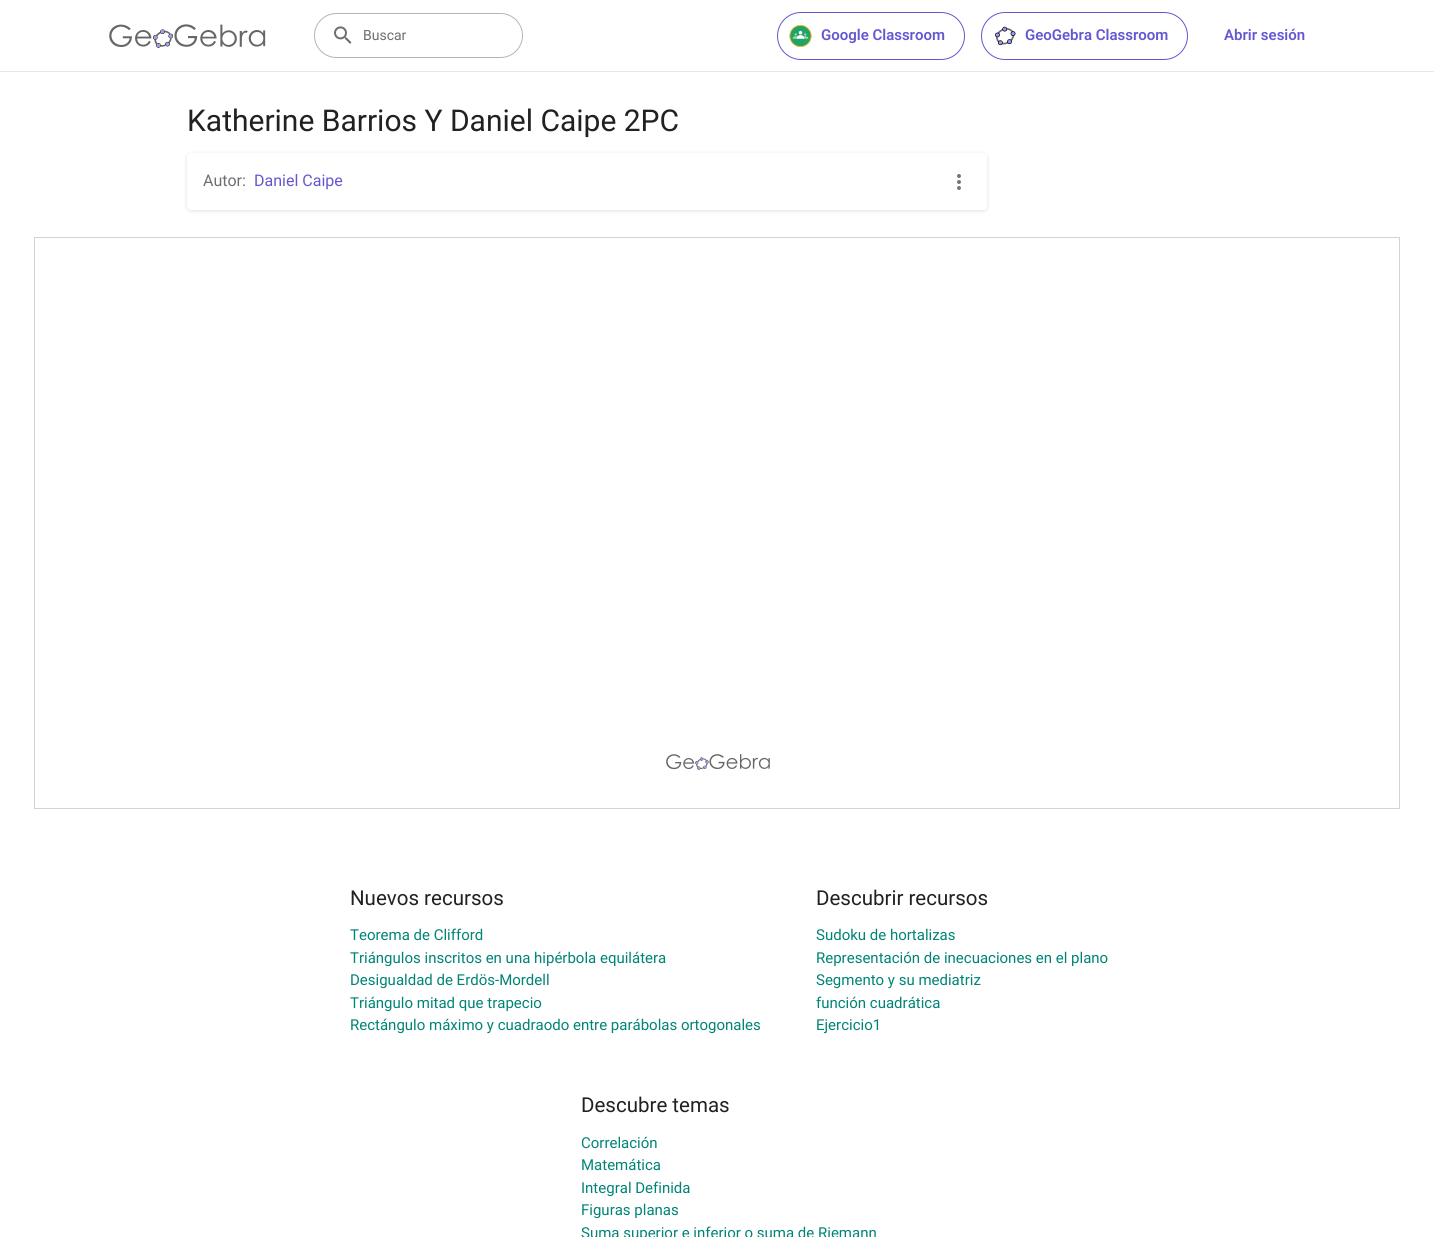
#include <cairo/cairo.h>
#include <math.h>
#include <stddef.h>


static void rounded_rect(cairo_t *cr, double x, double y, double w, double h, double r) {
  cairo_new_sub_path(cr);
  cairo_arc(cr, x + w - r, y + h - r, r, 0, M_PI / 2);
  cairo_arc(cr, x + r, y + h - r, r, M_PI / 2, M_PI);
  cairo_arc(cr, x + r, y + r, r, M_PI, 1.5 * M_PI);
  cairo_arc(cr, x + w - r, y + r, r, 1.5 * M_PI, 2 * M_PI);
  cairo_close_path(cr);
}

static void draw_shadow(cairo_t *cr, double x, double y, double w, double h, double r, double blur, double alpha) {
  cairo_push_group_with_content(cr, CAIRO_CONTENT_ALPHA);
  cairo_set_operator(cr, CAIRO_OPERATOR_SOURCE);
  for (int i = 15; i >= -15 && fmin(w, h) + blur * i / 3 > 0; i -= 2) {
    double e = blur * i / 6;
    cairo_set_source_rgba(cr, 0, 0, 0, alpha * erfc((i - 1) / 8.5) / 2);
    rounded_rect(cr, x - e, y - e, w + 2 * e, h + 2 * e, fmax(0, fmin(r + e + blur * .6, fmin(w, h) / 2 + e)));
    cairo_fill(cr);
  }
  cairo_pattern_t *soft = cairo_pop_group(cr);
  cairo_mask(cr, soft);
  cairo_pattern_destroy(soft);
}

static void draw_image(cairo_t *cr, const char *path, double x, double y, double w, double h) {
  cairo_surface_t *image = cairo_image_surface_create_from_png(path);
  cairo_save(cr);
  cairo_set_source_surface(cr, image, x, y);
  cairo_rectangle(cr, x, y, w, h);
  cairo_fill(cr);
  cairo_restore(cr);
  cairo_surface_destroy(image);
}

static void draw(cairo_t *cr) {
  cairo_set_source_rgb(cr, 1, 1, 1);
  cairo_paint(cr);
  cairo_set_source_rgb(cr, 230 / 255.0, 230 / 255.0, 235 / 255.0);
  cairo_rectangle(cr, 0, 71, 1434, 1);
  cairo_fill(cr);
  draw_image(cr, "images/1.png", 109, 24, 157, 24);
  rounded_rect(cr, 314.5, 13.5, 208, 44, 22);
  cairo_set_source_rgb(cr, 180 / 255.0, 179 / 255.0, 186 / 255.0);
  cairo_set_line_width(cr, 1);
  cairo_stroke(cr);
  draw_image(cr, "images/2.png", 334, 26, 18, 18);
  rounded_rect(cr, 777.5, 12.5, 187, 47, 23.5);
  cairo_set_source_rgb(cr, 101 / 255.0, 87 / 255.0, 210 / 255.0);
  cairo_stroke(cr);
  draw_image(cr, "images/3.png", 789, 24, 23, 24);
  rounded_rect(cr, 981.5, 12.5, 206, 47, 23.5);
  cairo_stroke(cr);
  draw_image(cr, "images/4.png", 995, 26, 21, 20);
  cairo_set_source_rgb(cr, 28 / 255.0, 28 / 255.0, 31 / 255.0);
  draw_shadow(cr, 187, 154, 800, 57, 4, 2, 0.14);
  cairo_set_source_rgb(cr, 1, 1, 1);
  rounded_rect(cr, 187, 153, 800, 57, 4);
  cairo_fill(cr);
  draw_image(cr, "images/5.png", 957, 174, 4, 16);
  draw_image(cr, "images/6.png", 666, 754, 104, 16);
  cairo_rectangle(cr, 34.5, 237.5, 1365, 571);
  cairo_set_source_rgb(cr, 211 / 255.0, 211 / 255.0, 211 / 255.0);
  cairo_stroke(cr);
  cairo_select_font_face(cr, "Roboto", CAIRO_FONT_SLANT_NORMAL, CAIRO_FONT_WEIGHT_NORMAL);
  cairo_set_font_size(cr, 14);
  cairo_set_source_rgb(cr, 110 / 255.0, 109 / 255.0, 115 / 255.0);
  cairo_move_to(cr, 363, 40);
  cairo_show_text(cr, "Buscar");
  cairo_select_font_face(cr, "Roboto SemiBold", CAIRO_FONT_SLANT_NORMAL, CAIRO_FONT_WEIGHT_NORMAL);
  cairo_set_font_size(cr, 15);
  cairo_set_source_rgb(cr, 101 / 255.0, 87 / 255.0, 210 / 255.0);
  cairo_move_to(cr, 821, 40);
  cairo_show_text(cr, "Google Classroom");
  cairo_move_to(cr, 1025, 40);
  cairo_show_text(cr, "GeoGebra Classroom");
  cairo_move_to(cr, 1224, 40);
  cairo_show_text(cr, "Abrir sesión");
  cairo_select_font_face(cr, "Roboto", CAIRO_FONT_SLANT_NORMAL, CAIRO_FONT_WEIGHT_NORMAL);
  cairo_set_font_size(cr, 30);
  cairo_set_source_rgb(cr, 33 / 255.0, 33 / 255.0, 33 / 255.0);
  cairo_move_to(cr, 187, 131);
  cairo_show_text(cr, "Katherine Barrios Y Daniel Caipe 2PC");
  cairo_set_font_size(cr, 16);
  cairo_set_source_rgb(cr, 110 / 255.0, 109 / 255.0, 115 / 255.0);
  cairo_move_to(cr, 203, 186);
  cairo_show_text(cr, "Autor:");
  cairo_set_source_rgb(cr, 101 / 255.0, 87 / 255.0, 210 / 255.0);
  cairo_move_to(cr, 254, 186);
  cairo_show_text(cr, "Daniel Caipe");
  cairo_set_font_size(cr, 20.5);
  cairo_set_source_rgb(cr, 33 / 255.0, 33 / 255.0, 33 / 255.0);
  cairo_move_to(cr, 350, 905);
  cairo_show_text(cr, "Nuevos recursos");
  cairo_set_font_size(cr, 15);
  cairo_set_source_rgb(cr, 0, 132 / 255.0, 117 / 255.0);
  cairo_move_to(cr, 350, 940);
  cairo_show_text(cr, "Teorema de Clifford");
  cairo_move_to(cr, 350, 963);
  cairo_show_text(cr, "Triángulos inscritos en una hipérbola equilátera");
  cairo_move_to(cr, 350, 985);
  cairo_show_text(cr, "Desigualdad de Erdös-Mordell");
  cairo_move_to(cr, 350, 1008);
  cairo_show_text(cr, "Triángulo mitad que trapecio");
  cairo_move_to(cr, 350, 1030);
  cairo_show_text(cr, "Rectángulo máximo y cuadraodo entre parábolas ortogonales");
  cairo_set_font_size(cr, 20.5);
  cairo_set_source_rgb(cr, 33 / 255.0, 33 / 255.0, 33 / 255.0);
  cairo_move_to(cr, 816, 905);
  cairo_show_text(cr, "Descubrir recursos");
  cairo_set_font_size(cr, 15);
  cairo_set_source_rgb(cr, 0, 132 / 255.0, 117 / 255.0);
  cairo_move_to(cr, 816, 940);
  cairo_show_text(cr, "Sudoku de hortalizas");
  cairo_move_to(cr, 816, 963);
  cairo_show_text(cr, "Representación de inecuaciones en el plano");
  cairo_move_to(cr, 816, 985);
  cairo_show_text(cr, "Segmento y su mediatriz");
  cairo_move_to(cr, 816, 1008);
  cairo_show_text(cr, "función cuadrática");
  cairo_move_to(cr, 816, 1030);
  cairo_show_text(cr, "Ejercicio1");
  cairo_set_font_size(cr, 20.5);
  cairo_set_source_rgb(cr, 33 / 255.0, 33 / 255.0, 33 / 255.0);
  cairo_move_to(cr, 581, 1112);
  cairo_show_text(cr, "Descubre temas");
  cairo_set_font_size(cr, 15);
  cairo_set_source_rgb(cr, 0, 132 / 255.0, 117 / 255.0);
  cairo_move_to(cr, 581, 1148);
  cairo_show_text(cr, "Correlación");
  cairo_move_to(cr, 581, 1170);
  cairo_show_text(cr, "Matemática");
  cairo_move_to(cr, 581, 1193);
  cairo_show_text(cr, "Integral Definida");
  cairo_move_to(cr, 581, 1215);
  cairo_show_text(cr, "Figuras planas");
  cairo_move_to(cr, 581, 1238);
  cairo_show_text(cr, "Suma superior e inferior o suma de Riemann");
}

int main(void) {
  cairo_surface_t *surface = cairo_image_surface_create(CAIRO_FORMAT_RGB24, 1434, 1237);
  cairo_t *cr = cairo_create(surface);
  cairo_font_options_t *options = cairo_font_options_create();
  cairo_font_options_set_hint_metrics(options, CAIRO_HINT_METRICS_OFF);
  cairo_font_options_set_hint_style(options, CAIRO_HINT_STYLE_NONE);
  cairo_set_font_options(cr, options);
  cairo_set_miter_limit(cr, 4);
  draw(cr);
  cairo_surface_write_to_png(surface, "out.png");
  cairo_font_options_destroy(options);
  cairo_destroy(cr);
  cairo_surface_destroy(surface);
  return 0;
}
